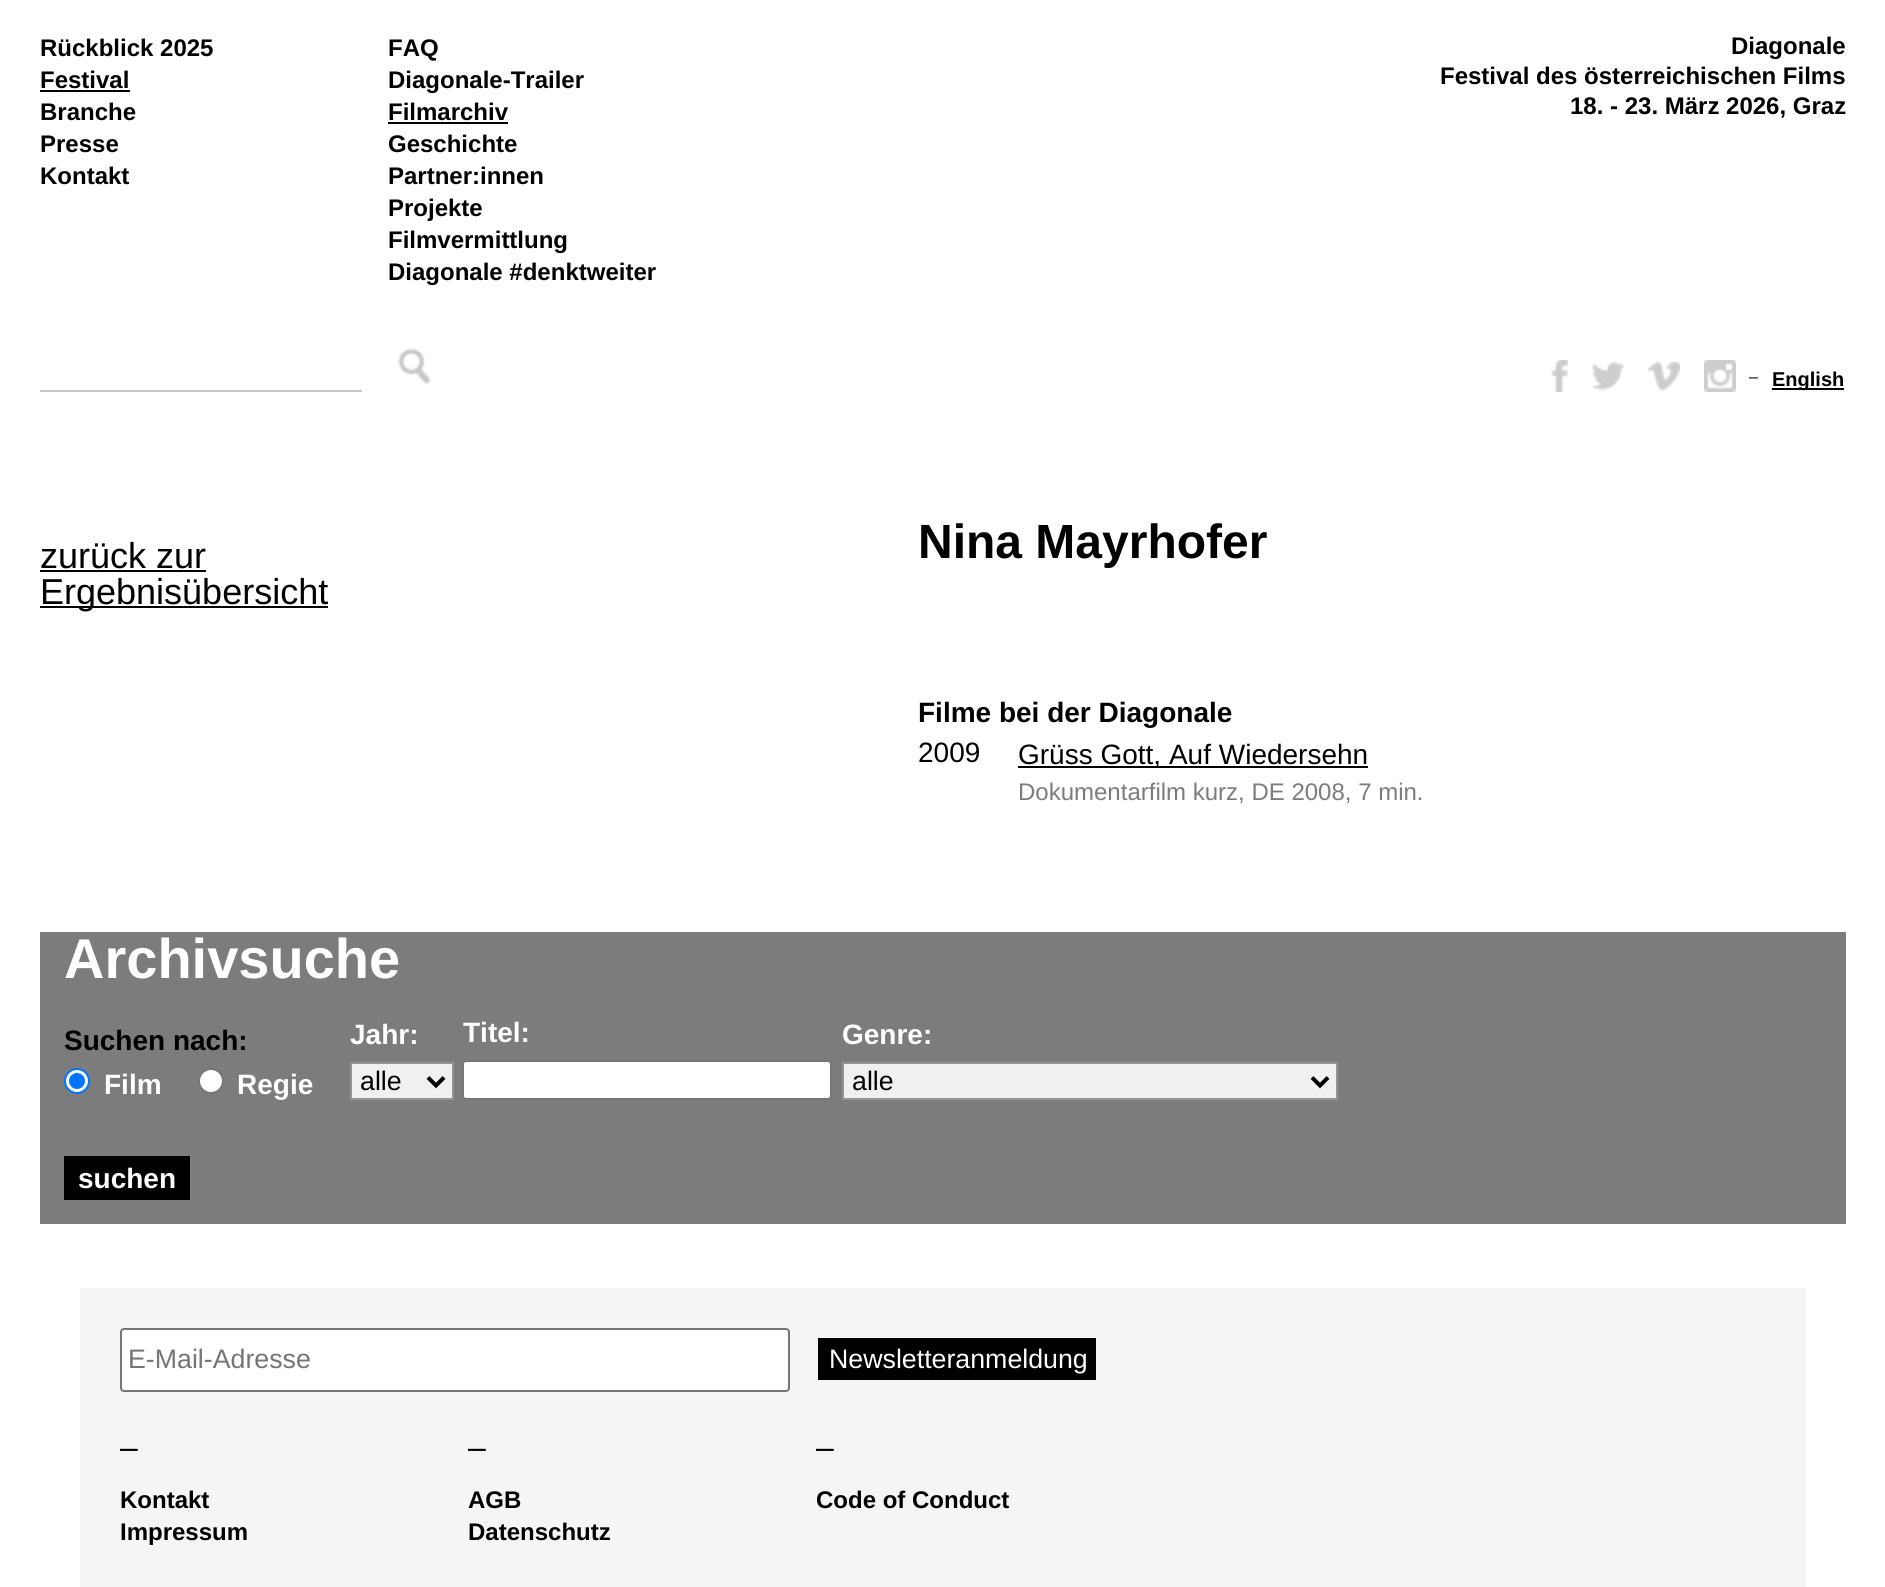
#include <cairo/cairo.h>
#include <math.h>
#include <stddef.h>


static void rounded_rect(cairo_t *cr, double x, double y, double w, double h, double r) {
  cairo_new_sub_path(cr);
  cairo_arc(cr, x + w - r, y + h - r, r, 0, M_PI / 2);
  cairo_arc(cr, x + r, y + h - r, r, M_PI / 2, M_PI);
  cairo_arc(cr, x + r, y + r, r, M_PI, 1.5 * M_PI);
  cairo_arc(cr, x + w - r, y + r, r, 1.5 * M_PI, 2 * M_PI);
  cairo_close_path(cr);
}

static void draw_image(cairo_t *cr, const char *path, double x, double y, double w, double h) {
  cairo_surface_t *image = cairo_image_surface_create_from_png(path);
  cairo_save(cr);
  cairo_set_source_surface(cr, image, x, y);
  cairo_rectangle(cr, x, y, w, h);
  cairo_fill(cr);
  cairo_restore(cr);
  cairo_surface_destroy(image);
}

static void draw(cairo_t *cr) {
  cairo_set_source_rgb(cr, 1, 1, 1);
  cairo_paint(cr);
  cairo_set_source_rgb(cr, 0, 0, 0);
  cairo_rectangle(cr, 40, 90, 90, 2);
  cairo_fill(cr);
  cairo_rectangle(cr, 388, 122, 120, 2);
  cairo_fill(cr);
  draw_image(cr, "images/1.png", 398, 348, 32, 36);
  cairo_set_source_rgb(cr, 199 / 255.0, 198 / 255.0, 197 / 255.0);
  cairo_rectangle(cr, 40, 390, 322, 2);
  cairo_fill(cr);
  draw_image(cr, "images/2.png", 1551, 360, 17, 32);
  draw_image(cr, "images/3.png", 1592, 361, 32, 30);
  draw_image(cr, "images/4.png", 1648, 361, 32, 30);
  draw_image(cr, "images/5.png", 1704, 360, 32, 32);
  cairo_set_source_rgb(cr, 0, 0, 0);
  cairo_rectangle(cr, 1772, 388, 72, 2);
  cairo_fill(cr);
  cairo_rectangle(cr, 40, 570, 166, 2);
  cairo_fill(cr);
  cairo_rectangle(cr, 40, 606, 288, 2);
  cairo_fill(cr);
  cairo_rectangle(cr, 1018, 766, 350, 2);
  cairo_fill(cr);
  cairo_set_source_rgb(cr, 124 / 255.0, 124 / 255.0, 124 / 255.0);
  cairo_rectangle(cr, 40, 932, 1806, 292);
  cairo_fill(cr);
  cairo_set_source_rgb(cr, 1, 1, 1);
  cairo_arc(cr, 77, 1081, 12, 0, 2 * M_PI);
  cairo_fill_preserve(cr);
  cairo_set_source_rgb(cr, 0, 117 / 255.0, 1);
  cairo_stroke(cr);
  cairo_arc(cr, 77, 1081, 8, 0, 2 * M_PI);
  cairo_fill(cr);
  cairo_set_source_rgb(cr, 1, 1, 1);
  cairo_arc(cr, 211, 1081, 12, 0, 2 * M_PI);
  cairo_fill_preserve(cr);
  cairo_set_source_rgb(cr, 118 / 255.0, 118 / 255.0, 118 / 255.0);
  cairo_stroke(cr);
  cairo_set_source_rgb(cr, 240 / 255.0, 240 / 255.0, 240 / 255.0);
  cairo_rectangle(cr, 351, 1063, 102, 36);
  cairo_fill_preserve(cr);
  cairo_set_source_rgb(cr, 148 / 255.0, 148 / 255.0, 148 / 255.0);
  cairo_stroke(cr);
  cairo_new_path(cr);
  cairo_move_to(cr, 428, 1077.5);
  cairo_line_to(cr, 436, 1085.5);
  cairo_line_to(cr, 444, 1077.5);
  cairo_set_source_rgb(cr, 0, 0, 0);
  cairo_set_line_width(cr, 4);
  cairo_stroke(cr);
  cairo_set_source_rgb(cr, 1, 1, 1);
  rounded_rect(cr, 463, 1061, 368, 38, 3);
  cairo_fill_preserve(cr);
  cairo_set_source_rgb(cr, 118 / 255.0, 118 / 255.0, 118 / 255.0);
  cairo_set_line_width(cr, 2);
  cairo_stroke(cr);
  cairo_set_source_rgb(cr, 240 / 255.0, 240 / 255.0, 240 / 255.0);
  cairo_rectangle(cr, 843, 1063, 494, 36);
  cairo_fill_preserve(cr);
  cairo_set_source_rgb(cr, 148 / 255.0, 148 / 255.0, 148 / 255.0);
  cairo_stroke(cr);
  cairo_new_path(cr);
  cairo_move_to(cr, 1312, 1077.5);
  cairo_line_to(cr, 1320, 1085.5);
  cairo_line_to(cr, 1328, 1077.5);
  cairo_set_source_rgb(cr, 0, 0, 0);
  cairo_set_line_width(cr, 4);
  cairo_stroke(cr);
  cairo_rectangle(cr, 64, 1156, 126, 44);
  cairo_fill(cr);
  cairo_set_source_rgb(cr, 245 / 255.0, 245 / 255.0, 245 / 255.0);
  cairo_rectangle(cr, 80, 1288, 1726, 299);
  cairo_fill(cr);
  cairo_set_source_rgb(cr, 1, 1, 1);
  rounded_rect(cr, 121, 1329, 668, 62, 3);
  cairo_fill_preserve(cr);
  cairo_set_source_rgb(cr, 118 / 255.0, 118 / 255.0, 118 / 255.0);
  cairo_set_line_width(cr, 2);
  cairo_stroke(cr);
  cairo_set_source_rgb(cr, 0, 0, 0);
  cairo_rectangle(cr, 818, 1338, 278, 42);
  cairo_fill(cr);
  cairo_select_font_face(cr, "Liberation Sans", CAIRO_FONT_SLANT_NORMAL, CAIRO_FONT_WEIGHT_BOLD);
  cairo_set_font_size(cr, 24);
  cairo_move_to(cr, 40, 56);
  cairo_show_text(cr, "Rückblick 2025");
  cairo_move_to(cr, 40, 88);
  cairo_show_text(cr, "Festival");
  cairo_move_to(cr, 388, 56);
  cairo_show_text(cr, "FAQ");
  cairo_move_to(cr, 388, 88);
  cairo_show_text(cr, "Diagonale-Trailer");
  cairo_move_to(cr, 388, 120);
  cairo_show_text(cr, "Filmarchiv");
  cairo_move_to(cr, 388, 152);
  cairo_show_text(cr, "Geschichte");
  cairo_move_to(cr, 388, 184);
  cairo_show_text(cr, "Partner:innen");
  cairo_move_to(cr, 388, 216);
  cairo_show_text(cr, "Projekte");
  cairo_move_to(cr, 388, 248);
  cairo_show_text(cr, "Filmvermittlung");
  cairo_move_to(cr, 388, 280);
  cairo_show_text(cr, "Diagonale #denktweiter");
  cairo_move_to(cr, 40, 120);
  cairo_show_text(cr, "Branche");
  cairo_move_to(cr, 40, 152);
  cairo_show_text(cr, "Presse");
  cairo_move_to(cr, 40, 184);
  cairo_show_text(cr, "Kontakt");
  cairo_move_to(cr, 1731, 54);
  cairo_show_text(cr, "Diagonale");
  cairo_move_to(cr, 1440, 84);
  cairo_show_text(cr, "Festival des österreichischen Films");
  cairo_move_to(cr, 1570, 114);
  cairo_show_text(cr, "18. - 23. März 2026, Graz");
  cairo_select_font_face(cr, "Liberation Sans", CAIRO_FONT_SLANT_NORMAL, CAIRO_FONT_WEIGHT_NORMAL);
  cairo_set_font_size(cr, 16);
  cairo_move_to(cr, 1749, 382);
  cairo_show_text(cr, "–");
  cairo_select_font_face(cr, "Liberation Sans", CAIRO_FONT_SLANT_NORMAL, CAIRO_FONT_WEIGHT_BOLD);
  cairo_set_font_size(cr, 20);
  cairo_move_to(cr, 1772, 386);
  cairo_show_text(cr, "English");
  cairo_select_font_face(cr, "Liberation Sans", CAIRO_FONT_SLANT_NORMAL, CAIRO_FONT_WEIGHT_NORMAL);
  cairo_set_font_size(cr, 36);
  cairo_move_to(cr, 40, 568);
  cairo_show_text(cr, "zurück zur");
  cairo_move_to(cr, 40, 604);
  cairo_show_text(cr, "Ergebnisübersicht");
  cairo_select_font_face(cr, "Liberation Sans", CAIRO_FONT_SLANT_NORMAL, CAIRO_FONT_WEIGHT_BOLD);
  cairo_set_font_size(cr, 48);
  cairo_move_to(cr, 918, 558);
  cairo_show_text(cr, "Nina Mayrhofer");
  cairo_set_font_size(cr, 28);
  cairo_move_to(cr, 918, 722);
  cairo_show_text(cr, "Filme bei der Diagonale");
  cairo_select_font_face(cr, "Liberation Sans", CAIRO_FONT_SLANT_NORMAL, CAIRO_FONT_WEIGHT_NORMAL);
  cairo_move_to(cr, 918, 762);
  cairo_show_text(cr, "2009");
  cairo_move_to(cr, 1018, 764);
  cairo_show_text(cr, "Grüss Gott, Auf Wiedersehn");
  cairo_set_font_size(cr, 24);
  cairo_set_source_rgb(cr, 124 / 255.0, 124 / 255.0, 124 / 255.0);
  cairo_move_to(cr, 1018, 800);
  cairo_show_text(cr, "Dokumentarfilm kurz, DE 2008, 7 min.");
  cairo_select_font_face(cr, "Liberation Sans", CAIRO_FONT_SLANT_NORMAL, CAIRO_FONT_WEIGHT_BOLD);
  cairo_set_font_size(cr, 56);
  cairo_set_source_rgb(cr, 1, 1, 1);
  cairo_move_to(cr, 64, 978);
  cairo_show_text(cr, "Archivsuche");
  cairo_set_font_size(cr, 28);
  cairo_set_source_rgb(cr, 0, 0, 0);
  cairo_move_to(cr, 64, 1050);
  cairo_show_text(cr, "Suchen nach:");
  cairo_set_source_rgb(cr, 1, 1, 1);
  cairo_move_to(cr, 104, 1094);
  cairo_show_text(cr, "Film");
  cairo_move_to(cr, 237, 1094);
  cairo_show_text(cr, "Regie");
  cairo_move_to(cr, 350, 1044);
  cairo_show_text(cr, "Jahr:");
  cairo_select_font_face(cr, "Liberation Sans", CAIRO_FONT_SLANT_NORMAL, CAIRO_FONT_WEIGHT_NORMAL);
  cairo_set_font_size(cr, 26.75);
  cairo_set_source_rgb(cr, 0, 0, 0);
  cairo_move_to(cr, 360, 1090);
  cairo_show_text(cr, "alle");
  cairo_select_font_face(cr, "Liberation Sans", CAIRO_FONT_SLANT_NORMAL, CAIRO_FONT_WEIGHT_BOLD);
  cairo_set_font_size(cr, 28);
  cairo_set_source_rgb(cr, 1, 1, 1);
  cairo_move_to(cr, 463, 1042);
  cairo_show_text(cr, "Titel:");
  cairo_move_to(cr, 842, 1044);
  cairo_show_text(cr, "Genre:");
  cairo_select_font_face(cr, "Liberation Sans", CAIRO_FONT_SLANT_NORMAL, CAIRO_FONT_WEIGHT_NORMAL);
  cairo_set_font_size(cr, 26.75);
  cairo_set_source_rgb(cr, 0, 0, 0);
  cairo_move_to(cr, 852, 1090);
  cairo_show_text(cr, "alle");
  cairo_select_font_face(cr, "Liberation Sans", CAIRO_FONT_SLANT_NORMAL, CAIRO_FONT_WEIGHT_BOLD);
  cairo_set_font_size(cr, 28);
  cairo_set_source_rgb(cr, 1, 1, 1);
  cairo_move_to(cr, 78, 1188);
  cairo_show_text(cr, "suchen");
  cairo_select_font_face(cr, "Liberation Sans", CAIRO_FONT_SLANT_NORMAL, CAIRO_FONT_WEIGHT_NORMAL);
  cairo_set_font_size(cr, 26.75);
  cairo_set_source_rgb(cr, 117 / 255.0, 117 / 255.0, 117 / 255.0);
  cairo_move_to(cr, 128, 1368);
  cairo_show_text(cr, "E-Mail-Adresse");
  cairo_set_source_rgb(cr, 1, 1, 1);
  cairo_move_to(cr, 829, 1368);
  cairo_show_text(cr, "Newsletteranmeldung");
  cairo_set_font_size(cr, 32);
  cairo_set_source_rgb(cr, 0, 0, 0);
  cairo_move_to(cr, 120, 1458);
  cairo_show_text(cr, "–");
  cairo_move_to(cr, 468, 1458);
  cairo_show_text(cr, "–");
  cairo_move_to(cr, 816, 1458);
  cairo_show_text(cr, "–");
  cairo_select_font_face(cr, "Liberation Sans", CAIRO_FONT_SLANT_NORMAL, CAIRO_FONT_WEIGHT_BOLD);
  cairo_set_font_size(cr, 24);
  cairo_move_to(cr, 120, 1508);
  cairo_show_text(cr, "Kontakt");
  cairo_move_to(cr, 120, 1540);
  cairo_show_text(cr, "Impressum");
  cairo_move_to(cr, 468, 1508);
  cairo_show_text(cr, "AGB");
  cairo_move_to(cr, 468, 1540);
  cairo_show_text(cr, "Datenschutz");
  cairo_move_to(cr, 816, 1508);
  cairo_show_text(cr, "Code of Conduct");
}

int main(void) {
  cairo_surface_t *surface = cairo_image_surface_create(CAIRO_FORMAT_RGB24, 1885, 1587);
  cairo_t *cr = cairo_create(surface);
  cairo_font_options_t *options = cairo_font_options_create();
  cairo_font_options_set_hint_metrics(options, CAIRO_HINT_METRICS_OFF);
  cairo_font_options_set_hint_style(options, CAIRO_HINT_STYLE_NONE);
  cairo_set_font_options(cr, options);
  cairo_set_miter_limit(cr, 4);
  draw(cr);
  cairo_surface_write_to_png(surface, "out.png");
  cairo_font_options_destroy(options);
  cairo_destroy(cr);
  cairo_surface_destroy(surface);
  return 0;
}
